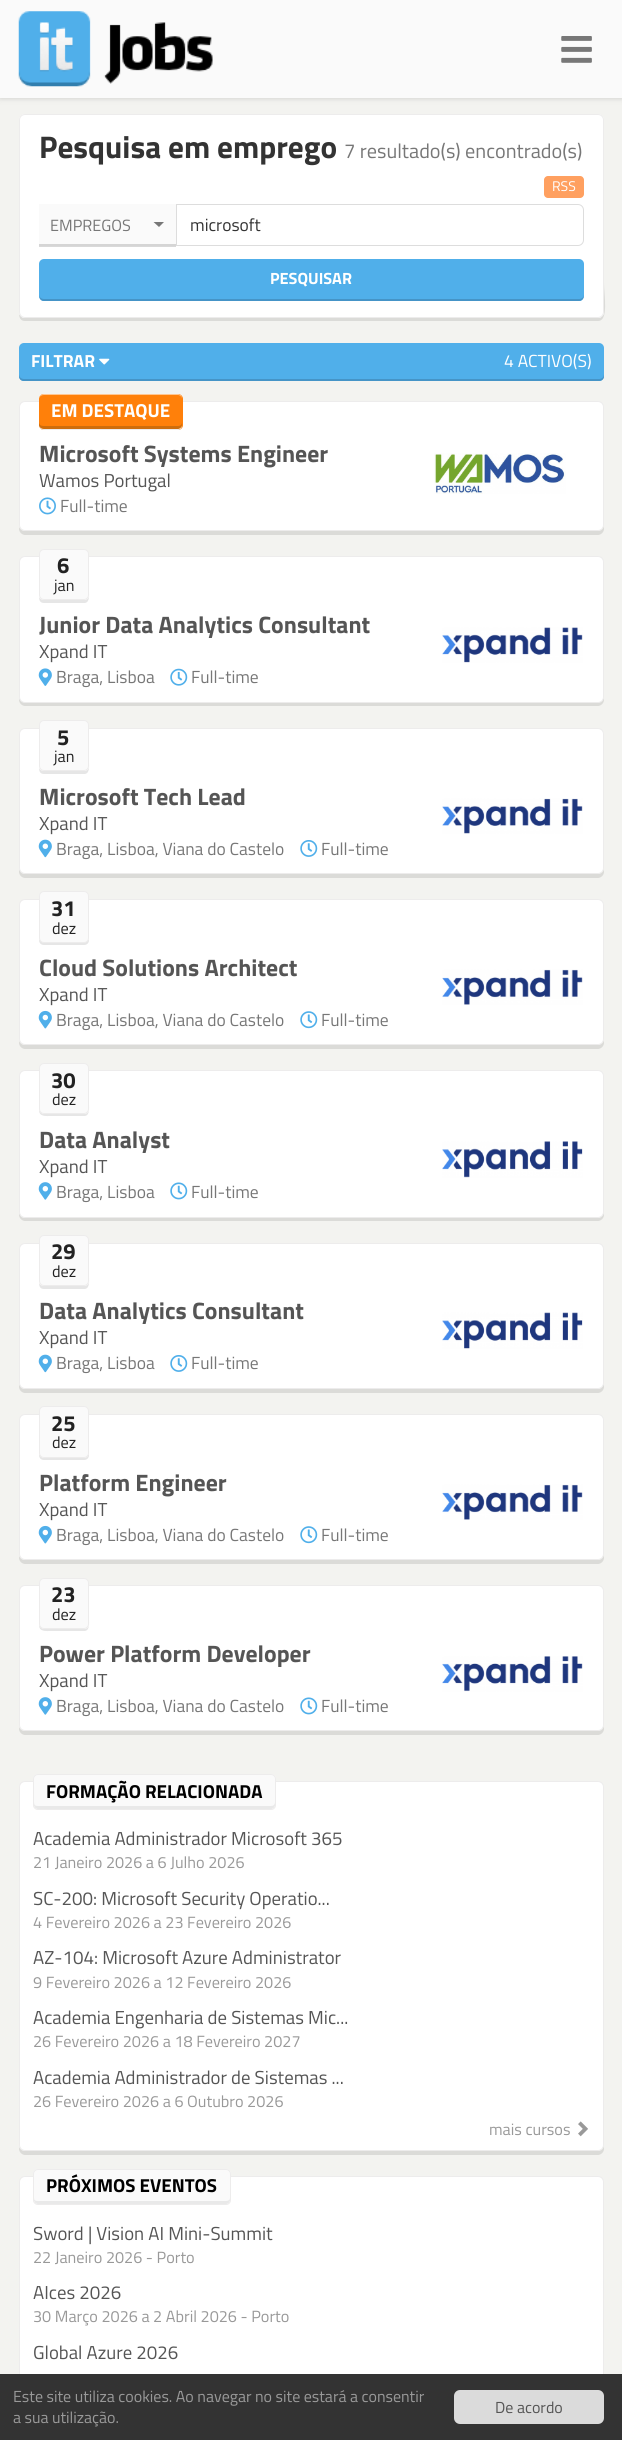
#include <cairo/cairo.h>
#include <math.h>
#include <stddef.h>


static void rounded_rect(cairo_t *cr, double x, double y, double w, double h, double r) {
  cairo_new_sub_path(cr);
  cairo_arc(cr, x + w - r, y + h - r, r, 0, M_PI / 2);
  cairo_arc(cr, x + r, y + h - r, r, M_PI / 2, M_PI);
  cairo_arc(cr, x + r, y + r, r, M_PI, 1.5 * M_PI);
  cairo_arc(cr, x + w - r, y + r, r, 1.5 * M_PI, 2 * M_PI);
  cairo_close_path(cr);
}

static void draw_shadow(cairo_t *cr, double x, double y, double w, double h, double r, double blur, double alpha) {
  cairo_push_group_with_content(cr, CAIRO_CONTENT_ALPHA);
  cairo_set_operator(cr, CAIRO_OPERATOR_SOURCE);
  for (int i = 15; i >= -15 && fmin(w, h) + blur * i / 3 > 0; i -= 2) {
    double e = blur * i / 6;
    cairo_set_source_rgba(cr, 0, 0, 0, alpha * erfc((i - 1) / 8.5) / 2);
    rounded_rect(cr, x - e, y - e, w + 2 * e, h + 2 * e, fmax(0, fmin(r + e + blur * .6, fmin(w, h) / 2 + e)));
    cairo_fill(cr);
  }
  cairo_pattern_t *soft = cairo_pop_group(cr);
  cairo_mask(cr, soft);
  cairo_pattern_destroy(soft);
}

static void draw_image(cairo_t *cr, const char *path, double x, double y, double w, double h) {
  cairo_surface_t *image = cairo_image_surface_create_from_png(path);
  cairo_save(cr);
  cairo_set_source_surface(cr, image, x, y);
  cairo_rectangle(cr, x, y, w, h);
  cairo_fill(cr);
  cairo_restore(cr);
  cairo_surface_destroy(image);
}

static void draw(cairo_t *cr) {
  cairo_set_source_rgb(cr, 243 / 255.0, 243 / 255.0, 240 / 255.0);
  cairo_paint(cr);
  cairo_set_source_rgb(cr, 0, 0, 0);
  draw_shadow(cr, 0, -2, 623, 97, 0, 4, 0.4);
  cairo_set_source_rgb(cr, 250 / 255.0, 250 / 255.0, 250 / 255.0);
  cairo_rectangle(cr, 0, 0, 622, 98);
  cairo_fill(cr);
  draw_image(cr, "images/1.png", 18, 11, 195, 76);
  draw_image(cr, "images/2.png", 561, 36, 31, 27);
  cairo_set_source_rgb(cr, 219 / 255.0, 219 / 255.0, 216 / 255.0);
  cairo_new_path(cr);
  cairo_move_to(cr, 19, 313);
  cairo_curve_to(cr, 19, 317, 20, 321, 25, 321);
  cairo_line_to(cr, 598, 321);
  cairo_curve_to(cr, 609, 321, 604, 295, 604, 283);
  cairo_line_to(cr, 604, 122);
  cairo_line_to(cr, 604, 311);
  cairo_curve_to(cr, 604, 315, 601, 318, 598, 318);
  cairo_line_to(cr, 25, 318);
  cairo_curve_to(cr, 22, 318, 20, 316, 19, 313);
  cairo_close_path(cr);
  cairo_fill(cr);
  cairo_set_source_rgb(cr, 1, 1, 1);
  rounded_rect(cr, 19, 114, 585, 204, 6);
  cairo_fill(cr);
  cairo_set_source_rgb(cr, 217 / 255.0, 217 / 255.0, 217 / 255.0);
  cairo_rectangle(cr, 39, 246, 137, 1);
  cairo_fill(cr);
  rounded_rect(cr, 19.5, 114.5, 584, 203, 5.5);
  cairo_set_source_rgb(cr, 237 / 255.0, 236 / 255.0, 236 / 255.0);
  cairo_set_line_width(cr, 1);
  cairo_stroke(cr);
  cairo_set_source_rgb(cr, 1, 160 / 255.0, 96 / 255.0);
  rounded_rect(cr, 544, 176, 40, 22, 4);
  cairo_fill(cr);
  cairo_set_source_rgb(cr, 250 / 255.0, 250 / 255.0, 250 / 255.0);
  cairo_rectangle(cr, 39, 204, 137, 40);
  cairo_fill(cr);
  cairo_set_source_rgb(cr, 213 / 255.0, 213 / 255.0, 213 / 255.0);
  cairo_rectangle(cr, 39, 244, 137, 2);
  cairo_fill(cr);
  cairo_set_source_rgb(cr, 119 / 255.0, 119 / 255.0, 119 / 255.0);
  cairo_new_path(cr);
  cairo_move_to(cr, 153.5, 222);
  cairo_line_to(cr, 164, 222);
  cairo_line_to(cr, 159, 227);
  cairo_close_path(cr);
  cairo_fill(cr);
  cairo_new_path(cr);
  cairo_move_to(cr, 176.5, 204.5);
  cairo_line_to(cr, 578, 204.5);
  cairo_curve_to(cr, 581, 204.5, 583.5, 207, 583.5, 210);
  cairo_line_to(cr, 583.5, 240);
  cairo_curve_to(cr, 583.5, 243, 581, 245.5, 578, 245.5);
  cairo_line_to(cr, 176.5, 245.5);
  cairo_close_path(cr);
  cairo_set_source_rgb(cr, 221 / 255.0, 221 / 255.0, 221 / 255.0);
  cairo_stroke(cr);
  cairo_set_source_rgb(cr, 80 / 255.0, 175 / 255.0, 234 / 255.0);
  rounded_rect(cr, 39, 259, 545, 42, 5);
  cairo_fill(cr);
  cairo_set_source_rgb(cr, 69 / 255.0, 148 / 255.0, 199 / 255.0);
  cairo_new_path(cr);
  cairo_move_to(cr, 39, 294);
  cairo_curve_to(cr, 39, 297, 40, 301, 44, 301);
  cairo_line_to(cr, 579, 301);
  cairo_curve_to(cr, 583, 301, 584, 297, 584, 294);
  cairo_curve_to(cr, 584, 297, 582, 299, 579, 299);
  cairo_line_to(cr, 44, 299);
  cairo_curve_to(cr, 41, 299, 39, 297, 39, 294);
  cairo_close_path(cr);
  cairo_fill(cr);
  cairo_set_source_rgb(cr, 80 / 255.0, 175 / 255.0, 234 / 255.0);
  rounded_rect(cr, 19, 343, 585, 38, 5);
  cairo_fill(cr);
  cairo_set_source_rgb(cr, 69 / 255.0, 148 / 255.0, 199 / 255.0);
  cairo_new_path(cr);
  cairo_move_to(cr, 19, 374);
  cairo_line_to(cr, 19, 376);
  cairo_curve_to(cr, 19, 379, 21, 381, 24, 381);
  cairo_line_to(cr, 599, 381);
  cairo_curve_to(cr, 602, 381, 604, 379, 604, 376);
  cairo_line_to(cr, 604, 374);
  cairo_curve_to(cr, 604, 377, 602, 379, 599, 379);
  cairo_line_to(cr, 24, 379);
  cairo_curve_to(cr, 21, 379, 19, 377, 19, 374);
  cairo_close_path(cr);
  cairo_fill(cr);
  draw_image(cr, "images/3.png", 99, 358, 11, 7);
  cairo_set_source_rgb(cr, 219 / 255.0, 219 / 255.0, 216 / 255.0);
  cairo_new_path(cr);
  cairo_move_to(cr, 19, 527);
  cairo_line_to(cr, 19, 529);
  cairo_curve_to(cr, 19, 532, 22, 535, 25, 535);
  cairo_line_to(cr, 598, 535);
  cairo_curve_to(cr, 601, 535, 604, 532, 604, 529);
  cairo_line_to(cr, 604, 409);
  cairo_line_to(cr, 604, 525);
  cairo_curve_to(cr, 604, 528, 601, 531, 598, 531);
  cairo_line_to(cr, 25, 531);
  cairo_curve_to(cr, 22, 531, 20, 529, 19, 527);
  cairo_close_path(cr);
  cairo_fill(cr);
  cairo_set_source_rgb(cr, 1, 1, 1);
  rounded_rect(cr, 19.5, 401.5, 584, 129, 5.5);
  cairo_fill_preserve(cr);
  cairo_set_source_rgb(cr, 237 / 255.0, 236 / 255.0, 236 / 255.0);
  cairo_stroke(cr);
  cairo_set_source_rgb(cr, 1, 128 / 255.0, 10 / 255.0);
  rounded_rect(cr, 39, 394, 144, 36, 5);
  cairo_fill(cr);
  cairo_set_source_rgb(cr, 206 / 255.0, 109 / 255.0, 12 / 255.0);
  cairo_new_path(cr);
  cairo_move_to(cr, 39, 398);
  cairo_line_to(cr, 39, 425);
  cairo_curve_to(cr, 39, 427, 41, 429, 44, 429);
  cairo_line_to(cr, 178, 429);
  cairo_curve_to(cr, 180, 429, 182, 427, 182, 425);
  cairo_line_to(cr, 182, 399);
  cairo_line_to(cr, 182, 397);
  cairo_line_to(cr, 182, 422);
  cairo_curve_to(cr, 182, 425, 180, 426, 178, 426);
  cairo_line_to(cr, 44, 426);
  cairo_curve_to(cr, 41, 426, 39, 425, 39, 422);
  cairo_close_path(cr);
  cairo_fill(cr);
  cairo_set_source_rgb(cr, 1, 198 / 255.0, 145 / 255.0);
  cairo_new_path(cr);
  cairo_move_to(cr, 44, 394);
  cairo_curve_to(cr, 41, 394, 39, 396, 39, 399);
  cairo_curve_to(cr, 39, 397, 41, 395, 44, 395);
  cairo_line_to(cr, 178, 395);
  cairo_curve_to(cr, 180, 395, 182, 397, 182, 399);
  cairo_curve_to(cr, 182, 396, 180, 394, 178, 394);
  cairo_close_path(cr);
  cairo_fill(cr);
  cairo_set_source_rgb(cr, 237 / 255.0, 236 / 255.0, 236 / 255.0);
  cairo_new_path(cr);
  cairo_move_to(cr, 178, 430);
  cairo_curve_to(cr, 180, 430, 182, 428, 182, 425);
  cairo_curve_to(cr, 182, 427, 180, 429, 178, 429);
  cairo_line_to(cr, 44, 429);
  cairo_curve_to(cr, 41, 429, 39, 427, 39, 425);
  cairo_curve_to(cr, 39, 428, 41, 430, 44, 430);
  cairo_close_path(cr);
  cairo_fill(cr);
  draw_image(cr, "images/4.png", 434, 453, 132, 41);
  draw_image(cr, "images/5.png", 39, 497, 17, 18);
  cairo_set_source_rgb(cr, 219 / 255.0, 219 / 255.0, 216 / 255.0);
  cairo_new_path(cr);
  cairo_move_to(cr, 19, 698);
  cairo_line_to(cr, 19, 700);
  cairo_curve_to(cr, 19, 703, 22, 706, 25, 706);
  cairo_line_to(cr, 598, 706);
  cairo_curve_to(cr, 601, 706, 604, 703, 604, 700);
  cairo_line_to(cr, 604, 564);
  cairo_line_to(cr, 604, 696);
  cairo_curve_to(cr, 604, 700, 601, 702, 598, 702);
  cairo_line_to(cr, 25, 702);
  cairo_curve_to(cr, 22, 702, 20, 701, 19, 698);
  cairo_close_path(cr);
  cairo_fill(cr);
  cairo_set_source_rgb(cr, 1, 1, 1);
  rounded_rect(cr, 19.5, 556.5, 584, 146, 5.5);
  cairo_fill_preserve(cr);
  cairo_set_source_rgb(cr, 237 / 255.0, 236 / 255.0, 236 / 255.0);
  cairo_stroke(cr);
  cairo_set_source_rgb(cr, 230 / 255.0, 230 / 255.0, 230 / 255.0);
  cairo_new_path(cr);
  cairo_move_to(cr, 39, 597);
  cairo_curve_to(cr, 39, 600, 40, 603, 44, 603);
  cairo_line_to(cr, 85, 603);
  cairo_curve_to(cr, 90, 602, 89, 595, 89, 591);
  cairo_line_to(cr, 89, 554);
  cairo_line_to(cr, 89, 595);
  cairo_curve_to(cr, 89, 598, 87, 600, 84, 600);
  cairo_line_to(cr, 44, 600);
  cairo_curve_to(cr, 42, 600, 40, 599, 39, 597);
  cairo_close_path(cr);
  cairo_fill(cr);
  cairo_set_source_rgb(cr, 250 / 255.0, 250 / 255.0, 250 / 255.0);
  rounded_rect(cr, 39.5, 549.5, 49, 50, 4.5);
  cairo_fill_preserve(cr);
  cairo_set_source_rgb(cr, 237 / 255.0, 236 / 255.0, 236 / 255.0);
  cairo_stroke(cr);
  draw_image(cr, "images/6.png", 442, 627, 141, 36);
  draw_image(cr, "images/7.png", 38, 668, 14, 18);
  draw_image(cr, "images/8.png", 170, 668, 18, 18);
  cairo_set_source_rgb(cr, 219 / 255.0, 219 / 255.0, 216 / 255.0);
  cairo_new_path(cr);
  cairo_move_to(cr, 19, 869);
  cairo_line_to(cr, 19, 872);
  cairo_curve_to(cr, 19, 875, 22, 878, 25, 878);
  cairo_line_to(cr, 598, 878);
  cairo_curve_to(cr, 601, 878, 604, 875, 604, 872);
  cairo_line_to(cr, 604, 735);
  cairo_line_to(cr, 604, 868);
  cairo_curve_to(cr, 604, 871, 601, 874, 598, 874);
  cairo_line_to(cr, 25, 874);
  cairo_curve_to(cr, 22, 874, 20, 872, 19, 869);
  cairo_close_path(cr);
  cairo_fill(cr);
  cairo_set_source_rgb(cr, 1, 1, 1);
  rounded_rect(cr, 19.5, 728.5, 584, 145, 5.5);
  cairo_fill_preserve(cr);
  cairo_set_source_rgb(cr, 237 / 255.0, 236 / 255.0, 236 / 255.0);
  cairo_stroke(cr);
  cairo_set_source_rgb(cr, 230 / 255.0, 230 / 255.0, 230 / 255.0);
  cairo_new_path(cr);
  cairo_move_to(cr, 39, 768);
  cairo_curve_to(cr, 39, 771, 40, 774, 44, 774);
  cairo_line_to(cr, 85, 774);
  cairo_curve_to(cr, 90, 773, 89, 766, 89, 762);
  cairo_line_to(cr, 89, 726);
  cairo_line_to(cr, 89, 766);
  cairo_curve_to(cr, 89, 769, 87, 771, 84, 771);
  cairo_line_to(cr, 44, 771);
  cairo_curve_to(cr, 42, 771, 40, 770, 39, 768);
  cairo_close_path(cr);
  cairo_fill(cr);
  cairo_set_source_rgb(cr, 250 / 255.0, 250 / 255.0, 250 / 255.0);
  rounded_rect(cr, 39.5, 720.5, 49, 50, 4.5);
  cairo_fill_preserve(cr);
  cairo_set_source_rgb(cr, 237 / 255.0, 236 / 255.0, 236 / 255.0);
  cairo_stroke(cr);
  draw_image(cr, "images/9.png", 442, 798, 141, 36);
  draw_image(cr, "images/10.png", 38, 839, 14, 19);
  draw_image(cr, "images/11.png", 300, 840, 18, 17);
  cairo_set_source_rgb(cr, 219 / 255.0, 219 / 255.0, 216 / 255.0);
  cairo_new_path(cr);
  cairo_move_to(cr, 19, 1041);
  cairo_line_to(cr, 19, 1043);
  cairo_curve_to(cr, 19, 1046, 22, 1049, 25, 1049);
  cairo_line_to(cr, 598, 1049);
  cairo_curve_to(cr, 601, 1049, 604, 1046, 604, 1043);
  cairo_line_to(cr, 604, 907);
  cairo_line_to(cr, 604, 1039);
  cairo_curve_to(cr, 604, 1042, 601, 1045, 598, 1045);
  cairo_line_to(cr, 25, 1045);
  cairo_curve_to(cr, 22, 1045, 20, 1043, 19, 1041);
  cairo_close_path(cr);
  cairo_fill(cr);
  cairo_set_source_rgb(cr, 1, 1, 1);
  rounded_rect(cr, 19.5, 899.5, 584, 145, 5.5);
  cairo_fill_preserve(cr);
  cairo_set_source_rgb(cr, 237 / 255.0, 236 / 255.0, 236 / 255.0);
  cairo_stroke(cr);
  cairo_set_source_rgb(cr, 230 / 255.0, 230 / 255.0, 230 / 255.0);
  cairo_new_path(cr);
  cairo_move_to(cr, 39, 939);
  cairo_line_to(cr, 39, 940);
  cairo_curve_to(cr, 39, 943, 41, 945, 44, 945);
  cairo_line_to(cr, 84, 945);
  cairo_curve_to(cr, 87, 945, 89, 943, 89, 940);
  cairo_line_to(cr, 89, 897);
  cairo_line_to(cr, 89, 938);
  cairo_curve_to(cr, 89, 940, 87, 942, 84, 942);
  cairo_line_to(cr, 44, 942);
  cairo_curve_to(cr, 42, 942, 40, 941, 39, 939);
  cairo_close_path(cr);
  cairo_fill(cr);
  cairo_set_source_rgb(cr, 250 / 255.0, 250 / 255.0, 250 / 255.0);
  rounded_rect(cr, 39.5, 891.5, 49, 51, 4.5);
  cairo_fill_preserve(cr);
  cairo_set_source_rgb(cr, 237 / 255.0, 236 / 255.0, 236 / 255.0);
  cairo_stroke(cr);
  draw_image(cr, "images/12.png", 442, 969, 141, 36);
  draw_image(cr, "images/13.png", 38, 1010, 14, 19);
  draw_image(cr, "images/14.png", 300, 1011, 18, 18);
  cairo_set_source_rgb(cr, 219 / 255.0, 219 / 255.0, 216 / 255.0);
  cairo_new_path(cr);
  cairo_move_to(cr, 19, 1213);
  cairo_line_to(cr, 19, 1215);
  cairo_curve_to(cr, 19, 1218, 22, 1221, 25, 1221);
  cairo_line_to(cr, 598, 1221);
  cairo_curve_to(cr, 601, 1221, 604, 1218, 604, 1215);
  cairo_line_to(cr, 604, 1078);
  cairo_line_to(cr, 604, 1211);
  cairo_curve_to(cr, 604, 1215, 601, 1218, 598, 1218);
  cairo_line_to(cr, 25, 1218);
  cairo_curve_to(cr, 22, 1218, 20, 1216, 19, 1213);
  cairo_close_path(cr);
  cairo_fill(cr);
  cairo_set_source_rgb(cr, 1, 1, 1);
  rounded_rect(cr, 19.5, 1070.5, 584, 147, 5.5);
  cairo_fill_preserve(cr);
  cairo_set_source_rgb(cr, 237 / 255.0, 236 / 255.0, 236 / 255.0);
  cairo_stroke(cr);
  cairo_set_source_rgb(cr, 230 / 255.0, 230 / 255.0, 230 / 255.0);
  cairo_new_path(cr);
  cairo_move_to(cr, 39, 1110);
  cairo_curve_to(cr, 39, 1117, 46, 1116, 51, 1116);
  cairo_line_to(cr, 85, 1116);
  cairo_curve_to(cr, 90, 1115, 89, 1108, 89, 1104);
  cairo_line_to(cr, 89, 1068);
  cairo_line_to(cr, 89, 1109);
  cairo_curve_to(cr, 89, 1112, 87, 1114, 84, 1114);
  cairo_line_to(cr, 44, 1114);
  cairo_curve_to(cr, 42, 1114, 40, 1112, 39, 1110);
  cairo_close_path(cr);
  cairo_fill(cr);
  cairo_set_source_rgb(cr, 250 / 255.0, 250 / 255.0, 250 / 255.0);
  rounded_rect(cr, 39.5, 1063.5, 49, 50, 4.5);
  cairo_fill_preserve(cr);
  cairo_set_source_rgb(cr, 237 / 255.0, 236 / 255.0, 236 / 255.0);
  cairo_stroke(cr);
  draw_image(cr, "images/15.png", 442, 1141, 141, 37);
  draw_image(cr, "images/16.png", 38, 1182, 14, 18);
  draw_image(cr, "images/17.png", 170, 1182, 18, 18);
  cairo_set_source_rgb(cr, 219 / 255.0, 219 / 255.0, 216 / 255.0);
  cairo_new_path(cr);
  cairo_move_to(cr, 19, 1384);
  cairo_line_to(cr, 19, 1387);
  cairo_curve_to(cr, 19, 1390, 22, 1393, 25, 1393);
  cairo_line_to(cr, 598, 1393);
  cairo_curve_to(cr, 601, 1393, 604, 1390, 604, 1387);
  cairo_line_to(cr, 604, 1250);
  cairo_line_to(cr, 604, 1382);
  cairo_curve_to(cr, 604, 1386, 601, 1389, 598, 1389);
  cairo_line_to(cr, 25, 1389);
  cairo_curve_to(cr, 22, 1389, 20, 1387, 19, 1384);
  cairo_close_path(cr);
  cairo_fill(cr);
  cairo_set_source_rgb(cr, 1, 1, 1);
  rounded_rect(cr, 19.5, 1243.5, 584, 145, 5.5);
  cairo_fill_preserve(cr);
  cairo_set_source_rgb(cr, 237 / 255.0, 236 / 255.0, 236 / 255.0);
  cairo_stroke(cr);
  cairo_set_source_rgb(cr, 230 / 255.0, 230 / 255.0, 230 / 255.0);
  cairo_new_path(cr);
  cairo_move_to(cr, 39, 1283);
  cairo_curve_to(cr, 39, 1286, 40, 1289, 44, 1289);
  cairo_line_to(cr, 85, 1289);
  cairo_curve_to(cr, 90, 1288, 89, 1281, 89, 1277);
  cairo_line_to(cr, 89, 1241);
  cairo_line_to(cr, 89, 1281);
  cairo_curve_to(cr, 89, 1284, 87, 1286, 84, 1286);
  cairo_line_to(cr, 44, 1286);
  cairo_curve_to(cr, 42, 1286, 40, 1285, 39, 1283);
  cairo_close_path(cr);
  cairo_fill(cr);
  cairo_set_source_rgb(cr, 250 / 255.0, 250 / 255.0, 250 / 255.0);
  rounded_rect(cr, 39.5, 1235.5, 49, 50, 4.5);
  cairo_fill_preserve(cr);
  cairo_set_source_rgb(cr, 237 / 255.0, 236 / 255.0, 236 / 255.0);
  cairo_stroke(cr);
  draw_image(cr, "images/18.png", 442, 1312, 141, 37);
  draw_image(cr, "images/10.png", 38, 1354, 14, 19);
  draw_image(cr, "images/11.png", 170, 1355, 18, 17);
  cairo_set_source_rgb(cr, 219 / 255.0, 219 / 255.0, 216 / 255.0);
  cairo_new_path(cr);
  cairo_move_to(cr, 19, 1556);
  cairo_line_to(cr, 19, 1558);
  cairo_curve_to(cr, 19, 1561, 22, 1564, 25, 1564);
  cairo_line_to(cr, 598, 1564);
  cairo_curve_to(cr, 601, 1564, 604, 1561, 604, 1558);
  cairo_line_to(cr, 604, 1422);
  cairo_line_to(cr, 604, 1554);
  cairo_curve_to(cr, 604, 1557, 601, 1560, 598, 1560);
  cairo_line_to(cr, 25, 1560);
  cairo_curve_to(cr, 22, 1560, 20, 1558, 19, 1556);
  cairo_close_path(cr);
  cairo_fill(cr);
  cairo_set_source_rgb(cr, 1, 1, 1);
  rounded_rect(cr, 19.5, 1414.5, 584, 145, 5.5);
  cairo_fill_preserve(cr);
  cairo_set_source_rgb(cr, 237 / 255.0, 236 / 255.0, 236 / 255.0);
  cairo_stroke(cr);
  cairo_set_source_rgb(cr, 230 / 255.0, 230 / 255.0, 230 / 255.0);
  cairo_new_path(cr);
  cairo_move_to(cr, 39, 1454);
  cairo_line_to(cr, 39, 1455);
  cairo_curve_to(cr, 39, 1458, 41, 1460, 44, 1460);
  cairo_line_to(cr, 84, 1460);
  cairo_curve_to(cr, 87, 1460, 89, 1458, 89, 1455);
  cairo_line_to(cr, 89, 1412);
  cairo_line_to(cr, 89, 1452);
  cairo_curve_to(cr, 89, 1455, 87, 1458, 84, 1458);
  cairo_line_to(cr, 44, 1458);
  cairo_curve_to(cr, 42, 1458, 40, 1456, 39, 1454);
  cairo_close_path(cr);
  cairo_fill(cr);
  cairo_set_source_rgb(cr, 250 / 255.0, 250 / 255.0, 250 / 255.0);
  rounded_rect(cr, 39.5, 1406.5, 49, 51, 4.5);
  cairo_fill_preserve(cr);
  cairo_set_source_rgb(cr, 237 / 255.0, 236 / 255.0, 236 / 255.0);
  cairo_stroke(cr);
  draw_image(cr, "images/12.png", 442, 1484, 141, 36);
  draw_image(cr, "images/13.png", 38, 1525, 14, 19);
  draw_image(cr, "images/14.png", 300, 1526, 18, 18);
  cairo_set_source_rgb(cr, 219 / 255.0, 219 / 255.0, 216 / 255.0);
  cairo_new_path(cr);
  cairo_move_to(cr, 19, 1727);
  cairo_line_to(cr, 19, 1729);
  cairo_curve_to(cr, 19, 1732, 22, 1735, 25, 1735);
  cairo_line_to(cr, 598, 1735);
  cairo_curve_to(cr, 601, 1735, 604, 1732, 604, 1729);
  cairo_line_to(cr, 604, 1593);
  cairo_line_to(cr, 604, 1725);
  cairo_curve_to(cr, 604, 1728, 601, 1731, 598, 1731);
  cairo_line_to(cr, 25, 1731);
  cairo_curve_to(cr, 22, 1731, 20, 1729, 19, 1727);
  cairo_close_path(cr);
  cairo_fill(cr);
  cairo_set_source_rgb(cr, 1, 1, 1);
  rounded_rect(cr, 19.5, 1585.5, 584, 145, 5.5);
  cairo_fill_preserve(cr);
  cairo_set_source_rgb(cr, 237 / 255.0, 236 / 255.0, 236 / 255.0);
  cairo_stroke(cr);
  cairo_set_source_rgb(cr, 230 / 255.0, 230 / 255.0, 230 / 255.0);
  cairo_new_path(cr);
  cairo_move_to(cr, 39, 1625);
  cairo_curve_to(cr, 39, 1632, 46, 1631, 51, 1631);
  cairo_line_to(cr, 85, 1631);
  cairo_curve_to(cr, 90, 1630, 89, 1623, 89, 1619);
  cairo_line_to(cr, 89, 1583);
  cairo_line_to(cr, 89, 1624);
  cairo_curve_to(cr, 89, 1627, 87, 1629, 84, 1629);
  cairo_line_to(cr, 44, 1629);
  cairo_curve_to(cr, 42, 1629, 40, 1627, 39, 1625);
  cairo_close_path(cr);
  cairo_fill(cr);
  cairo_set_source_rgb(cr, 250 / 255.0, 250 / 255.0, 250 / 255.0);
  rounded_rect(cr, 39.5, 1578.5, 49, 50, 4.5);
  cairo_fill_preserve(cr);
  cairo_set_source_rgb(cr, 237 / 255.0, 236 / 255.0, 236 / 255.0);
  cairo_stroke(cr);
  draw_image(cr, "images/19.png", 442, 1656, 141, 36);
  draw_image(cr, "images/16.png", 38, 1697, 14, 18);
  draw_image(cr, "images/17.png", 300, 1697, 18, 18);
  cairo_set_source_rgb(cr, 219 / 255.0, 219 / 255.0, 216 / 255.0);
  cairo_new_path(cr);
  cairo_move_to(cr, 19, 2147);
  cairo_line_to(cr, 19, 2149);
  cairo_curve_to(cr, 19, 2152, 22, 2155, 25, 2155);
  cairo_line_to(cr, 598, 2155);
  cairo_curve_to(cr, 601, 2155, 604, 2152, 604, 2149);
  cairo_line_to(cr, 604, 1789);
  cairo_line_to(cr, 604, 2145);
  cairo_curve_to(cr, 604, 2148, 601, 2151, 598, 2151);
  cairo_line_to(cr, 25, 2151);
  cairo_curve_to(cr, 22, 2151, 20, 2149, 19, 2147);
  cairo_close_path(cr);
  cairo_fill(cr);
  cairo_set_source_rgb(cr, 1, 1, 1);
  rounded_rect(cr, 19.5, 1781.5, 584, 369, 5.5);
  cairo_fill_preserve(cr);
  cairo_set_source_rgb(cr, 237 / 255.0, 236 / 255.0, 236 / 255.0);
  cairo_stroke(cr);
  cairo_set_source_rgb(cr, 250 / 255.0, 250 / 255.0, 250 / 255.0);
  rounded_rect(cr, 33, 1774, 243, 36, 5);
  cairo_fill(cr);
  cairo_set_source_rgb(cr, 233 / 255.0, 233 / 255.0, 233 / 255.0);
  cairo_new_path(cr);
  cairo_move_to(cr, 34, 1802);
  cairo_line_to(cr, 34, 1805);
  cairo_curve_to(cr, 34, 1807, 36, 1809, 38, 1809);
  cairo_line_to(cr, 271, 1809);
  cairo_curve_to(cr, 273, 1809, 275, 1807, 275, 1805);
  cairo_line_to(cr, 275, 1802);
  cairo_curve_to(cr, 275, 1805, 273, 1806, 271, 1806);
  cairo_line_to(cr, 38, 1806);
  cairo_curve_to(cr, 35, 1806, 34, 1805, 34, 1802);
  cairo_close_path(cr);
  cairo_fill(cr);
  rounded_rect(cr, 33.5, 1774.5, 242, 35, 4.5);
  cairo_set_source_rgb(cr, 237 / 255.0, 236 / 255.0, 236 / 255.0);
  cairo_stroke(cr);
  draw_image(cr, "images/20.png", 578, 2121, 10, 16);
  cairo_set_source_rgb(cr, 1, 1, 1);
  rounded_rect(cr, 19.5, 2176.5, 584, 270, 5.5);
  cairo_fill_preserve(cr);
  cairo_set_source_rgb(cr, 237 / 255.0, 236 / 255.0, 236 / 255.0);
  cairo_stroke(cr);
  cairo_set_source_rgb(cr, 250 / 255.0, 250 / 255.0, 250 / 255.0);
  rounded_rect(cr, 33, 2169, 198, 36, 5);
  cairo_fill(cr);
  cairo_set_source_rgb(cr, 233 / 255.0, 233 / 255.0, 233 / 255.0);
  cairo_new_path(cr);
  cairo_move_to(cr, 34, 2198);
  cairo_line_to(cr, 34, 2200);
  cairo_curve_to(cr, 34, 2202, 36, 2204, 38, 2204);
  cairo_line_to(cr, 226, 2204);
  cairo_curve_to(cr, 228, 2204, 230, 2202, 230, 2200);
  cairo_line_to(cr, 230, 2198);
  cairo_curve_to(cr, 230, 2200, 228, 2201, 226, 2201);
  cairo_line_to(cr, 38, 2201);
  cairo_curve_to(cr, 35, 2201, 34, 2200, 34, 2198);
  cairo_close_path(cr);
  cairo_fill(cr);
  rounded_rect(cr, 33.5, 2169.5, 197, 35, 4.5);
  cairo_set_source_rgb(cr, 237 / 255.0, 236 / 255.0, 236 / 255.0);
  cairo_stroke(cr);
  cairo_set_source_rgb(cr, 51 / 255.0, 51 / 255.0, 51 / 255.0);
  cairo_rectangle(cr, 0, 2374, 622, 66);
  cairo_fill(cr);
  cairo_set_source_rgb(cr, 219 / 255.0, 219 / 255.0, 219 / 255.0);
  rounded_rect(cr, 454, 2390, 150, 34, 6);
  cairo_fill(cr);
  cairo_select_font_face(cr, "Titillium Web", CAIRO_FONT_SLANT_NORMAL, CAIRO_FONT_WEIGHT_BOLD);
  cairo_set_font_size(cr, 31.25);
  cairo_set_source_rgb(cr, 51 / 255.0, 51 / 255.0, 51 / 255.0);
  cairo_move_to(cr, 39, 158);
  cairo_show_text(cr, "Pesquisa em emprego");
  cairo_select_font_face(cr, "Titillium Web", CAIRO_FONT_SLANT_NORMAL, CAIRO_FONT_WEIGHT_NORMAL);
  cairo_set_font_size(cr, 20.25);
  cairo_set_source_rgb(cr, 119 / 255.0, 119 / 255.0, 119 / 255.0);
  cairo_move_to(cr, 344, 158);
  cairo_show_text(cr, "7 resultado(s) encontrado(s)");
  cairo_set_font_size(cr, 14);
  cairo_set_source_rgb(cr, 1, 1, 1);
  cairo_move_to(cr, 552, 191);
  cairo_show_text(cr, "RSS");
  cairo_set_font_size(cr, 16.25);
  cairo_set_source_rgb(cr, 119 / 255.0, 119 / 255.0, 119 / 255.0);
  cairo_move_to(cr, 50, 231);
  cairo_show_text(cr, "EMPREGOS");
  cairo_set_font_size(cr, 17.5);
  cairo_set_source_rgb(cr, 51 / 255.0, 51 / 255.0, 51 / 255.0);
  cairo_move_to(cr, 190, 231);
  cairo_show_text(cr, "microsoft");
  cairo_select_font_face(cr, "Titillium Web", CAIRO_FONT_SLANT_NORMAL, CAIRO_FONT_WEIGHT_BOLD);
  cairo_set_font_size(cr, 16.25);
  cairo_set_source_rgb(cr, 1, 1, 1);
  cairo_move_to(cr, 270, 284);
  cairo_show_text(cr, "PESQUISAR");
  cairo_set_font_size(cr, 17.5);
  cairo_move_to(cr, 31, 367);
  cairo_show_text(cr, "FILTRAR");
  cairo_select_font_face(cr, "Titillium Web", CAIRO_FONT_SLANT_NORMAL, CAIRO_FONT_WEIGHT_NORMAL);
  cairo_move_to(cr, 504, 367);
  cairo_show_text(cr, "4 ACTIVO(S)");
  cairo_select_font_face(cr, "Titillium Web", CAIRO_FONT_SLANT_NORMAL, CAIRO_FONT_WEIGHT_BOLD);
  cairo_set_font_size(cr, 18.75);
  cairo_move_to(cr, 51, 417);
  cairo_show_text(cr, "EM DESTAQUE");
  cairo_set_font_size(cr, 23.75);
  cairo_set_source_rgb(cr, 85 / 255.0, 85 / 255.0, 85 / 255.0);
  cairo_move_to(cr, 39, 462);
  cairo_show_text(cr, "Microsoft Systems Engineer");
  cairo_select_font_face(cr, "Titillium Web", CAIRO_FONT_SLANT_NORMAL, CAIRO_FONT_WEIGHT_NORMAL);
  cairo_set_font_size(cr, 18.75);
  cairo_move_to(cr, 39, 487);
  cairo_show_text(cr, "Wamos Portugal");
  cairo_set_font_size(cr, 17.5);
  cairo_set_source_rgb(cr, 119 / 255.0, 119 / 255.0, 119 / 255.0);
  cairo_move_to(cr, 60, 512);
  cairo_show_text(cr, "Full-time");
  cairo_select_font_face(cr, "Titillium Web", CAIRO_FONT_SLANT_NORMAL, CAIRO_FONT_WEIGHT_BOLD);
  cairo_set_font_size(cr, 22);
  cairo_set_source_rgb(cr, 34 / 255.0, 34 / 255.0, 34 / 255.0);
  cairo_move_to(cr, 57, 573);
  cairo_show_text(cr, "6");
  cairo_select_font_face(cr, "Titillium Web", CAIRO_FONT_SLANT_NORMAL, CAIRO_FONT_WEIGHT_NORMAL);
  cairo_set_font_size(cr, 16.25);
  cairo_move_to(cr, 54, 591);
  cairo_show_text(cr, "jan");
  cairo_select_font_face(cr, "Titillium Web", CAIRO_FONT_SLANT_NORMAL, CAIRO_FONT_WEIGHT_BOLD);
  cairo_set_font_size(cr, 23.75);
  cairo_set_source_rgb(cr, 85 / 255.0, 85 / 255.0, 85 / 255.0);
  cairo_move_to(cr, 39, 633);
  cairo_show_text(cr, "Junior Data Analytics Consultant");
  cairo_select_font_face(cr, "Titillium Web", CAIRO_FONT_SLANT_NORMAL, CAIRO_FONT_WEIGHT_NORMAL);
  cairo_set_font_size(cr, 18.75);
  cairo_move_to(cr, 39, 658);
  cairo_show_text(cr, "Xpand IT");
  cairo_set_font_size(cr, 17.5);
  cairo_set_source_rgb(cr, 119 / 255.0, 119 / 255.0, 119 / 255.0);
  cairo_move_to(cr, 56, 683);
  cairo_show_text(cr, "Braga, Lisboa");
  cairo_move_to(cr, 191, 683);
  cairo_show_text(cr, "Full-time");
  cairo_select_font_face(cr, "Titillium Web", CAIRO_FONT_SLANT_NORMAL, CAIRO_FONT_WEIGHT_BOLD);
  cairo_set_font_size(cr, 22);
  cairo_set_source_rgb(cr, 34 / 255.0, 34 / 255.0, 34 / 255.0);
  cairo_move_to(cr, 57, 745);
  cairo_show_text(cr, "5");
  cairo_select_font_face(cr, "Titillium Web", CAIRO_FONT_SLANT_NORMAL, CAIRO_FONT_WEIGHT_NORMAL);
  cairo_set_font_size(cr, 16.25);
  cairo_move_to(cr, 54, 762);
  cairo_show_text(cr, "jan");
  cairo_select_font_face(cr, "Titillium Web", CAIRO_FONT_SLANT_NORMAL, CAIRO_FONT_WEIGHT_BOLD);
  cairo_set_font_size(cr, 23.75);
  cairo_set_source_rgb(cr, 85 / 255.0, 85 / 255.0, 85 / 255.0);
  cairo_move_to(cr, 39, 805);
  cairo_show_text(cr, "Microsoft Tech Lead");
  cairo_select_font_face(cr, "Titillium Web", CAIRO_FONT_SLANT_NORMAL, CAIRO_FONT_WEIGHT_NORMAL);
  cairo_set_font_size(cr, 18.75);
  cairo_move_to(cr, 39, 830);
  cairo_show_text(cr, "Xpand IT");
  cairo_set_font_size(cr, 17.5);
  cairo_set_source_rgb(cr, 119 / 255.0, 119 / 255.0, 119 / 255.0);
  cairo_move_to(cr, 56, 855);
  cairo_show_text(cr, "Braga, Lisboa, Viana do Castelo");
  cairo_move_to(cr, 321, 855);
  cairo_show_text(cr, "Full-time");
  cairo_select_font_face(cr, "Titillium Web", CAIRO_FONT_SLANT_NORMAL, CAIRO_FONT_WEIGHT_BOLD);
  cairo_set_font_size(cr, 22);
  cairo_set_source_rgb(cr, 34 / 255.0, 34 / 255.0, 34 / 255.0);
  cairo_move_to(cr, 51, 916);
  cairo_show_text(cr, "31");
  cairo_select_font_face(cr, "Titillium Web", CAIRO_FONT_SLANT_NORMAL, CAIRO_FONT_WEIGHT_NORMAL);
  cairo_set_font_size(cr, 16.25);
  cairo_move_to(cr, 52, 934);
  cairo_show_text(cr, "dez");
  cairo_select_font_face(cr, "Titillium Web", CAIRO_FONT_SLANT_NORMAL, CAIRO_FONT_WEIGHT_BOLD);
  cairo_set_font_size(cr, 23.75);
  cairo_set_source_rgb(cr, 85 / 255.0, 85 / 255.0, 85 / 255.0);
  cairo_move_to(cr, 39, 976);
  cairo_show_text(cr, "Cloud Solutions Architect");
  cairo_select_font_face(cr, "Titillium Web", CAIRO_FONT_SLANT_NORMAL, CAIRO_FONT_WEIGHT_NORMAL);
  cairo_set_font_size(cr, 18.75);
  cairo_move_to(cr, 39, 1001);
  cairo_show_text(cr, "Xpand IT");
  cairo_set_font_size(cr, 17.5);
  cairo_set_source_rgb(cr, 119 / 255.0, 119 / 255.0, 119 / 255.0);
  cairo_move_to(cr, 56, 1026);
  cairo_show_text(cr, "Braga, Lisboa, Viana do Castelo");
  cairo_move_to(cr, 321, 1026);
  cairo_show_text(cr, "Full-time");
  cairo_select_font_face(cr, "Titillium Web", CAIRO_FONT_SLANT_NORMAL, CAIRO_FONT_WEIGHT_BOLD);
  cairo_set_font_size(cr, 22);
  cairo_set_source_rgb(cr, 34 / 255.0, 34 / 255.0, 34 / 255.0);
  cairo_move_to(cr, 51, 1088);
  cairo_show_text(cr, "30");
  cairo_select_font_face(cr, "Titillium Web", CAIRO_FONT_SLANT_NORMAL, CAIRO_FONT_WEIGHT_NORMAL);
  cairo_set_font_size(cr, 16.25);
  cairo_move_to(cr, 52, 1105);
  cairo_show_text(cr, "dez");
  cairo_select_font_face(cr, "Titillium Web", CAIRO_FONT_SLANT_NORMAL, CAIRO_FONT_WEIGHT_BOLD);
  cairo_set_font_size(cr, 23.75);
  cairo_set_source_rgb(cr, 85 / 255.0, 85 / 255.0, 85 / 255.0);
  cairo_move_to(cr, 39, 1148);
  cairo_show_text(cr, "Data Analyst");
  cairo_select_font_face(cr, "Titillium Web", CAIRO_FONT_SLANT_NORMAL, CAIRO_FONT_WEIGHT_NORMAL);
  cairo_set_font_size(cr, 18.75);
  cairo_move_to(cr, 39, 1173);
  cairo_show_text(cr, "Xpand IT");
  cairo_set_font_size(cr, 17.5);
  cairo_set_source_rgb(cr, 119 / 255.0, 119 / 255.0, 119 / 255.0);
  cairo_move_to(cr, 56, 1198);
  cairo_show_text(cr, "Braga, Lisboa");
  cairo_move_to(cr, 191, 1198);
  cairo_show_text(cr, "Full-time");
  cairo_select_font_face(cr, "Titillium Web", CAIRO_FONT_SLANT_NORMAL, CAIRO_FONT_WEIGHT_BOLD);
  cairo_set_font_size(cr, 22);
  cairo_set_source_rgb(cr, 34 / 255.0, 34 / 255.0, 34 / 255.0);
  cairo_move_to(cr, 51, 1259);
  cairo_show_text(cr, "29");
  cairo_select_font_face(cr, "Titillium Web", CAIRO_FONT_SLANT_NORMAL, CAIRO_FONT_WEIGHT_NORMAL);
  cairo_set_font_size(cr, 16.25);
  cairo_move_to(cr, 52, 1277);
  cairo_show_text(cr, "dez");
  cairo_select_font_face(cr, "Titillium Web", CAIRO_FONT_SLANT_NORMAL, CAIRO_FONT_WEIGHT_BOLD);
  cairo_set_font_size(cr, 23.75);
  cairo_set_source_rgb(cr, 85 / 255.0, 85 / 255.0, 85 / 255.0);
  cairo_move_to(cr, 39, 1319);
  cairo_show_text(cr, "Data Analytics Consultant");
  cairo_select_font_face(cr, "Titillium Web", CAIRO_FONT_SLANT_NORMAL, CAIRO_FONT_WEIGHT_NORMAL);
  cairo_set_font_size(cr, 18.75);
  cairo_move_to(cr, 39, 1344);
  cairo_show_text(cr, "Xpand IT");
  cairo_set_font_size(cr, 17.5);
  cairo_set_source_rgb(cr, 119 / 255.0, 119 / 255.0, 119 / 255.0);
  cairo_move_to(cr, 56, 1369);
  cairo_show_text(cr, "Braga, Lisboa");
  cairo_move_to(cr, 191, 1369);
  cairo_show_text(cr, "Full-time");
  cairo_select_font_face(cr, "Titillium Web", CAIRO_FONT_SLANT_NORMAL, CAIRO_FONT_WEIGHT_BOLD);
  cairo_set_font_size(cr, 22);
  cairo_set_source_rgb(cr, 34 / 255.0, 34 / 255.0, 34 / 255.0);
  cairo_move_to(cr, 51, 1431);
  cairo_show_text(cr, "25");
  cairo_select_font_face(cr, "Titillium Web", CAIRO_FONT_SLANT_NORMAL, CAIRO_FONT_WEIGHT_NORMAL);
  cairo_set_font_size(cr, 16.25);
  cairo_move_to(cr, 52, 1448);
  cairo_show_text(cr, "dez");
  cairo_select_font_face(cr, "Titillium Web", CAIRO_FONT_SLANT_NORMAL, CAIRO_FONT_WEIGHT_BOLD);
  cairo_set_font_size(cr, 23.75);
  cairo_set_source_rgb(cr, 85 / 255.0, 85 / 255.0, 85 / 255.0);
  cairo_move_to(cr, 39, 1491);
  cairo_show_text(cr, "Platform Engineer");
  cairo_select_font_face(cr, "Titillium Web", CAIRO_FONT_SLANT_NORMAL, CAIRO_FONT_WEIGHT_NORMAL);
  cairo_set_font_size(cr, 18.75);
  cairo_move_to(cr, 39, 1516);
  cairo_show_text(cr, "Xpand IT");
  cairo_set_font_size(cr, 17.5);
  cairo_set_source_rgb(cr, 119 / 255.0, 119 / 255.0, 119 / 255.0);
  cairo_move_to(cr, 56, 1541);
  cairo_show_text(cr, "Braga, Lisboa, Viana do Castelo");
  cairo_move_to(cr, 321, 1541);
  cairo_show_text(cr, "Full-time");
  cairo_select_font_face(cr, "Titillium Web", CAIRO_FONT_SLANT_NORMAL, CAIRO_FONT_WEIGHT_BOLD);
  cairo_set_font_size(cr, 22);
  cairo_set_source_rgb(cr, 34 / 255.0, 34 / 255.0, 34 / 255.0);
  cairo_move_to(cr, 51, 1602);
  cairo_show_text(cr, "23");
  cairo_select_font_face(cr, "Titillium Web", CAIRO_FONT_SLANT_NORMAL, CAIRO_FONT_WEIGHT_NORMAL);
  cairo_set_font_size(cr, 16.25);
  cairo_move_to(cr, 52, 1620);
  cairo_show_text(cr, "dez");
  cairo_select_font_face(cr, "Titillium Web", CAIRO_FONT_SLANT_NORMAL, CAIRO_FONT_WEIGHT_BOLD);
  cairo_set_font_size(cr, 23.75);
  cairo_set_source_rgb(cr, 85 / 255.0, 85 / 255.0, 85 / 255.0);
  cairo_move_to(cr, 39, 1662);
  cairo_show_text(cr, "Power Platform Developer");
  cairo_select_font_face(cr, "Titillium Web", CAIRO_FONT_SLANT_NORMAL, CAIRO_FONT_WEIGHT_NORMAL);
  cairo_set_font_size(cr, 18.75);
  cairo_move_to(cr, 39, 1687);
  cairo_show_text(cr, "Xpand IT");
  cairo_set_font_size(cr, 17.5);
  cairo_set_source_rgb(cr, 119 / 255.0, 119 / 255.0, 119 / 255.0);
  cairo_move_to(cr, 56, 1712);
  cairo_show_text(cr, "Braga, Lisboa, Viana do Castelo");
  cairo_move_to(cr, 321, 1712);
  cairo_show_text(cr, "Full-time");
  cairo_select_font_face(cr, "Titillium Web", CAIRO_FONT_SLANT_NORMAL, CAIRO_FONT_WEIGHT_BOLD);
  cairo_set_font_size(cr, 18.75);
  cairo_set_source_rgb(cr, 0, 0, 0);
  cairo_move_to(cr, 46, 1798);
  cairo_show_text(cr, "FORMAÇÃO RELACIONADA");
  cairo_select_font_face(cr, "Titillium Web", CAIRO_FONT_SLANT_NORMAL, CAIRO_FONT_WEIGHT_NORMAL);
  cairo_set_source_rgb(cr, 85 / 255.0, 85 / 255.0, 85 / 255.0);
  cairo_move_to(cr, 33, 1845);
  cairo_show_text(cr, "Academia Administrador Microsoft 365");
  cairo_set_font_size(cr, 16.25);
  cairo_set_source_rgb(cr, 153 / 255.0, 153 / 255.0, 153 / 255.0);
  cairo_move_to(cr, 33, 1868);
  cairo_show_text(cr, "21 Janeiro 2026 a 6 Julho 2026");
  cairo_set_font_size(cr, 18.75);
  cairo_set_source_rgb(cr, 85 / 255.0, 85 / 255.0, 85 / 255.0);
  cairo_move_to(cr, 33, 1905);
  cairo_show_text(cr, "SC-200: Microsoft Security Operatio...");
  cairo_set_font_size(cr, 16.25);
  cairo_set_source_rgb(cr, 153 / 255.0, 153 / 255.0, 153 / 255.0);
  cairo_move_to(cr, 33, 1928);
  cairo_show_text(cr, "4 Fevereiro 2026 a 23 Fevereiro 2026");
  cairo_set_font_size(cr, 18.75);
  cairo_set_source_rgb(cr, 85 / 255.0, 85 / 255.0, 85 / 255.0);
  cairo_move_to(cr, 33, 1964);
  cairo_show_text(cr, "AZ-104: Microsoft Azure Administrator");
  cairo_set_font_size(cr, 16.25);
  cairo_set_source_rgb(cr, 153 / 255.0, 153 / 255.0, 153 / 255.0);
  cairo_move_to(cr, 33, 1988);
  cairo_show_text(cr, "9 Fevereiro 2026 a 12 Fevereiro 2026");
  cairo_set_font_size(cr, 18.75);
  cairo_set_source_rgb(cr, 85 / 255.0, 85 / 255.0, 85 / 255.0);
  cairo_move_to(cr, 33, 2024);
  cairo_show_text(cr, "Academia Engenharia de Sistemas Mic...");
  cairo_set_font_size(cr, 16.25);
  cairo_set_source_rgb(cr, 153 / 255.0, 153 / 255.0, 153 / 255.0);
  cairo_move_to(cr, 33, 2047);
  cairo_show_text(cr, "26 Fevereiro 2026 a 18 Fevereiro 2027");
  cairo_set_font_size(cr, 18.75);
  cairo_set_source_rgb(cr, 85 / 255.0, 85 / 255.0, 85 / 255.0);
  cairo_move_to(cr, 33, 2084);
  cairo_show_text(cr, "Academia Administrador de Sistemas ...");
  cairo_set_font_size(cr, 16.25);
  cairo_set_source_rgb(cr, 153 / 255.0, 153 / 255.0, 153 / 255.0);
  cairo_move_to(cr, 33, 2107);
  cairo_show_text(cr, "26 Fevereiro 2026 a 6 Outubro 2026");
  cairo_move_to(cr, 489, 2135);
  cairo_show_text(cr, "mais cursos");
  cairo_select_font_face(cr, "Titillium Web", CAIRO_FONT_SLANT_NORMAL, CAIRO_FONT_WEIGHT_BOLD);
  cairo_set_font_size(cr, 18.75);
  cairo_set_source_rgb(cr, 0, 0, 0);
  cairo_move_to(cr, 46, 2192);
  cairo_show_text(cr, "PRÓXIMOS EVENTOS");
  cairo_select_font_face(cr, "Titillium Web", CAIRO_FONT_SLANT_NORMAL, CAIRO_FONT_WEIGHT_NORMAL);
  cairo_set_source_rgb(cr, 85 / 255.0, 85 / 255.0, 85 / 255.0);
  cairo_move_to(cr, 33, 2240);
  cairo_show_text(cr, "Sword | Vision AI Mini-Summit");
  cairo_set_font_size(cr, 16.25);
  cairo_set_source_rgb(cr, 153 / 255.0, 153 / 255.0, 153 / 255.0);
  cairo_move_to(cr, 33, 2263);
  cairo_show_text(cr, "22 Janeiro 2026 - Porto");
  cairo_set_font_size(cr, 18.75);
  cairo_set_source_rgb(cr, 85 / 255.0, 85 / 255.0, 85 / 255.0);
  cairo_move_to(cr, 33, 2299);
  cairo_show_text(cr, "AIces 2026");
  cairo_set_font_size(cr, 16.25);
  cairo_set_source_rgb(cr, 153 / 255.0, 153 / 255.0, 153 / 255.0);
  cairo_move_to(cr, 33, 2322);
  cairo_show_text(cr, "30 Março 2026 a 2 Abril 2026 - Porto");
  cairo_set_font_size(cr, 18.75);
  cairo_set_source_rgb(cr, 85 / 255.0, 85 / 255.0, 85 / 255.0);
  cairo_move_to(cr, 33, 2359);
  cairo_show_text(cr, "Global Azure 2026");
  cairo_set_font_size(cr, 16);
  cairo_set_source_rgb(cr, 153 / 255.0, 153 / 255.0, 153 / 255.0);
  cairo_move_to(cr, 13, 2402);
  cairo_show_text(cr, "Este site utiliza cookies. Ao navegar no site estará a consentir");
  cairo_move_to(cr, 13, 2423);
  cairo_show_text(cr, "a sua utilização.");
  cairo_set_source_rgb(cr, 85 / 255.0, 85 / 255.0, 85 / 255.0);
  cairo_move_to(cr, 495, 2413);
  cairo_show_text(cr, "De acordo");
}

int main(void) {
  cairo_surface_t *surface = cairo_image_surface_create(CAIRO_FORMAT_RGB24, 622, 2440);
  cairo_t *cr = cairo_create(surface);
  cairo_font_options_t *options = cairo_font_options_create();
  cairo_font_options_set_hint_metrics(options, CAIRO_HINT_METRICS_OFF);
  cairo_font_options_set_hint_style(options, CAIRO_HINT_STYLE_NONE);
  cairo_set_font_options(cr, options);
  cairo_set_miter_limit(cr, 4);
  draw(cr);
  cairo_surface_write_to_png(surface, "out.png");
  cairo_font_options_destroy(options);
  cairo_destroy(cr);
  cairo_surface_destroy(surface);
  return 0;
}
